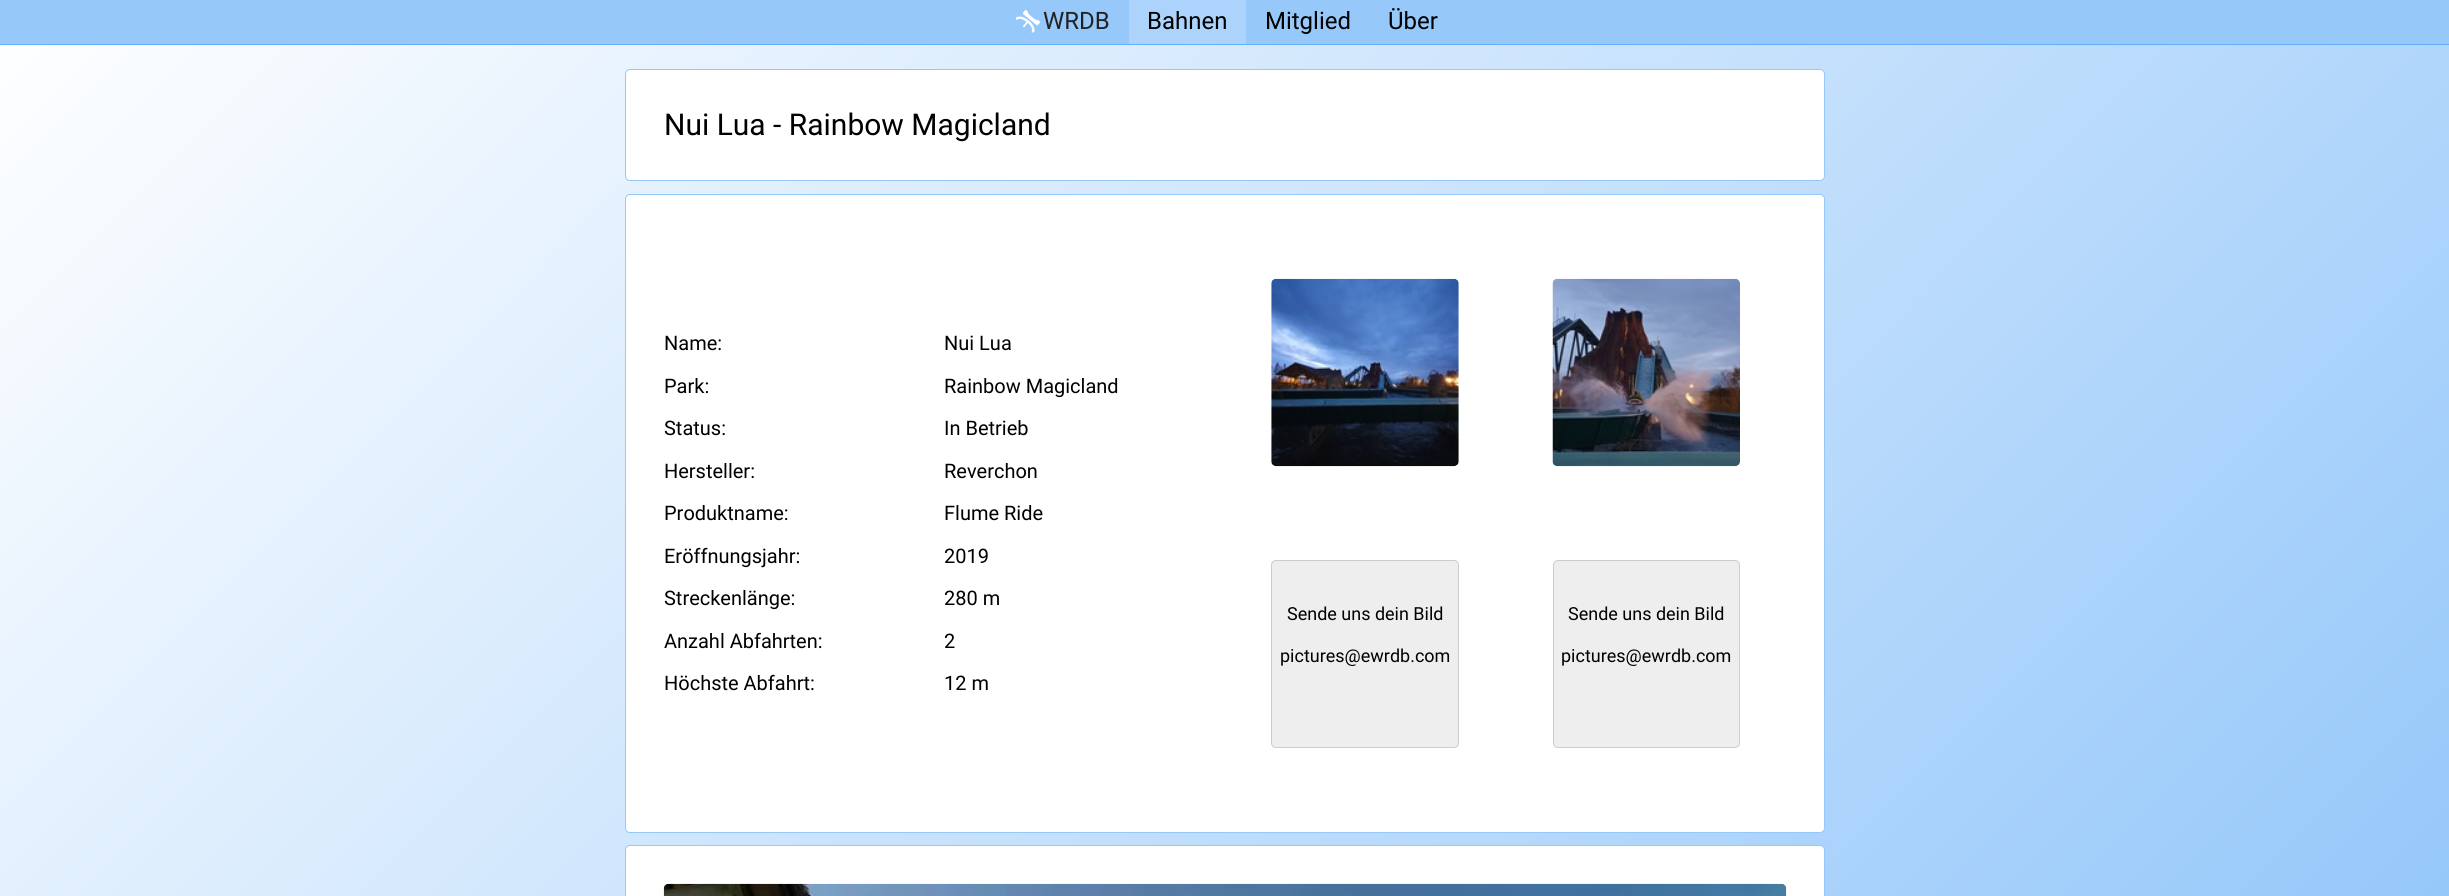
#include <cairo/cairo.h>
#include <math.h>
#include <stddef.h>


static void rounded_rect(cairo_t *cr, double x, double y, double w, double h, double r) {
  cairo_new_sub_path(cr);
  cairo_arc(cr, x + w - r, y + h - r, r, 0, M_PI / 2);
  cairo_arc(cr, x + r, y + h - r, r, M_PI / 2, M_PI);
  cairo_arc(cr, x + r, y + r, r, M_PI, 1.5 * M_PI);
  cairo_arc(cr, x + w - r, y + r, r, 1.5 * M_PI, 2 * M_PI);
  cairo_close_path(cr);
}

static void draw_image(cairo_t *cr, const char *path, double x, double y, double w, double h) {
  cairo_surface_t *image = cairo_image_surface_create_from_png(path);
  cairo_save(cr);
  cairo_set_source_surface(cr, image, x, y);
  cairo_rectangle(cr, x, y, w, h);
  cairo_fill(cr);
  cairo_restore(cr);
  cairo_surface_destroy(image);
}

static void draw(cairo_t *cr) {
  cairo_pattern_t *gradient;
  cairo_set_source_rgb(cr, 1, 1, 1);
  cairo_paint(cr);
  gradient = cairo_pattern_create_linear(388, -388, 2062, 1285);
  cairo_pattern_add_color_stop_rgba(gradient, 0, 1, 1, 1, 1);
  cairo_pattern_add_color_stop_rgba(gradient, 1, 150 / 255.0, 200 / 255.0, 250 / 255.0, 1);
  cairo_set_source(cr, gradient);
  cairo_pattern_destroy(gradient);
  cairo_rectangle(cr, 0, 45, 2449, 851);
  cairo_fill(cr);
  cairo_set_source_rgb(cr, 150 / 255.0, 200 / 255.0, 250 / 255.0);
  cairo_rectangle(cr, 0, 0, 2449, 44);
  cairo_fill(cr);
  cairo_set_source_rgb(cr, 101 / 255.0, 174 / 255.0, 248 / 255.0);
  cairo_rectangle(cr, 0, 44, 2449, 1);
  cairo_fill(cr);
  draw_image(cr, "images/1.png", 1016, 9, 25, 24);
  cairo_set_source_rgb(cr, 172 / 255.0, 211 / 255.0, 251 / 255.0);
  cairo_rectangle(cr, 1129, 0, 117, 44);
  cairo_fill(cr);
  cairo_set_source_rgb(cr, 1, 1, 1);
  rounded_rect(cr, 625.5, 69.5, 1199, 111, 4.5);
  cairo_fill_preserve(cr);
  cairo_set_source_rgb(cr, 150 / 255.0, 200 / 255.0, 250 / 255.0);
  cairo_set_line_width(cr, 1);
  cairo_stroke(cr);
  cairo_set_source_rgb(cr, 1, 1, 1);
  rounded_rect(cr, 625.5, 194.5, 1199, 638, 4.5);
  cairo_fill_preserve(cr);
  cairo_set_source_rgb(cr, 150 / 255.0, 200 / 255.0, 250 / 255.0);
  cairo_stroke(cr);
  draw_image(cr, "images/2.png", 1271, 278, 188, 189);
  draw_image(cr, "images/3.png", 1552, 278, 188, 189);
  cairo_set_source_rgb(cr, 238 / 255.0, 238 / 255.0, 238 / 255.0);
  rounded_rect(cr, 1271.5, 560.5, 187, 187, 4.5);
  cairo_fill_preserve(cr);
  cairo_set_source_rgb(cr, 204 / 255.0, 204 / 255.0, 204 / 255.0);
  cairo_stroke(cr);
  cairo_set_source_rgb(cr, 238 / 255.0, 238 / 255.0, 238 / 255.0);
  rounded_rect(cr, 1553.5, 560.5, 186, 187, 4.5);
  cairo_fill_preserve(cr);
  cairo_set_source_rgb(cr, 204 / 255.0, 204 / 255.0, 204 / 255.0);
  cairo_stroke(cr);
  cairo_set_source_rgb(cr, 1, 1, 1);
  rounded_rect(cr, 625.5, 845.5, 1199, 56, 4.5);
  cairo_fill_preserve(cr);
  cairo_set_source_rgb(cr, 150 / 255.0, 200 / 255.0, 250 / 255.0);
  cairo_stroke(cr);
  draw_image(cr, "images/4.png", 663, 883, 1124, 13);
  cairo_select_font_face(cr, "Roboto", CAIRO_FONT_SLANT_NORMAL, CAIRO_FONT_WEIGHT_NORMAL);
  cairo_set_font_size(cr, 24);
  cairo_set_source_rgb(cr, 34 / 255.0, 34 / 255.0, 34 / 255.0);
  cairo_move_to(cr, 1043, 29);
  cairo_show_text(cr, "WRDB");
  cairo_set_source_rgb(cr, 0, 0, 0);
  cairo_move_to(cr, 1147, 29);
  cairo_show_text(cr, "Bahnen");
  cairo_move_to(cr, 1265, 29);
  cairo_show_text(cr, "Mitglied");
  cairo_move_to(cr, 1388, 29);
  cairo_show_text(cr, "Über");
  cairo_set_font_size(cr, 30);
  cairo_move_to(cr, 664, 135);
  cairo_show_text(cr, "Nui Lua - Rainbow Magicland");
  cairo_set_font_size(cr, 20);
  cairo_move_to(cr, 664, 350);
  cairo_show_text(cr, "Name:");
  cairo_move_to(cr, 944, 350);
  cairo_show_text(cr, "Nui Lua");
  cairo_move_to(cr, 664, 393);
  cairo_show_text(cr, "Park:");
  cairo_move_to(cr, 944, 393);
  cairo_show_text(cr, "Rainbow Magicland");
  cairo_move_to(cr, 664, 435);
  cairo_show_text(cr, "Status:");
  cairo_move_to(cr, 944, 435);
  cairo_show_text(cr, "In Betrieb");
  cairo_move_to(cr, 664, 478);
  cairo_show_text(cr, "Hersteller:");
  cairo_move_to(cr, 944, 478);
  cairo_show_text(cr, "Reverchon");
  cairo_move_to(cr, 664, 520);
  cairo_show_text(cr, "Produktname:");
  cairo_move_to(cr, 944, 520);
  cairo_show_text(cr, "Flume Ride");
  cairo_move_to(cr, 664, 563);
  cairo_show_text(cr, "Eröffnungsjahr:");
  cairo_move_to(cr, 944, 563);
  cairo_show_text(cr, "2019");
  cairo_move_to(cr, 664, 605);
  cairo_show_text(cr, "Streckenlänge:");
  cairo_move_to(cr, 944, 605);
  cairo_show_text(cr, "280 m");
  cairo_move_to(cr, 664, 648);
  cairo_show_text(cr, "Anzahl Abfahrten:");
  cairo_move_to(cr, 944, 648);
  cairo_show_text(cr, "2");
  cairo_move_to(cr, 664, 690);
  cairo_show_text(cr, "Höchste Abfahrt:");
  cairo_move_to(cr, 944, 690);
  cairo_show_text(cr, "12 m");
  cairo_set_font_size(cr, 18);
  cairo_move_to(cr, 1287, 620);
  cairo_show_text(cr, "Sende uns dein Bild");
  cairo_move_to(cr, 1280, 662);
  cairo_show_text(cr, "pictures@ewrdb.com");
  cairo_move_to(cr, 1568, 620);
  cairo_show_text(cr, "Sende uns dein Bild");
  cairo_move_to(cr, 1561, 662);
  cairo_show_text(cr, "pictures@ewrdb.com");
}

int main(void) {
  cairo_surface_t *surface = cairo_image_surface_create(CAIRO_FORMAT_RGB24, 2449, 896);
  cairo_t *cr = cairo_create(surface);
  cairo_font_options_t *options = cairo_font_options_create();
  cairo_font_options_set_hint_metrics(options, CAIRO_HINT_METRICS_OFF);
  cairo_font_options_set_hint_style(options, CAIRO_HINT_STYLE_NONE);
  cairo_set_font_options(cr, options);
  cairo_set_miter_limit(cr, 4);
  draw(cr);
  cairo_surface_write_to_png(surface, "out.png");
  cairo_font_options_destroy(options);
  cairo_destroy(cr);
  cairo_surface_destroy(surface);
  return 0;
}
